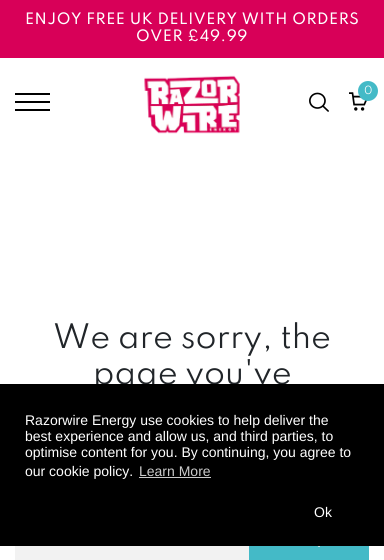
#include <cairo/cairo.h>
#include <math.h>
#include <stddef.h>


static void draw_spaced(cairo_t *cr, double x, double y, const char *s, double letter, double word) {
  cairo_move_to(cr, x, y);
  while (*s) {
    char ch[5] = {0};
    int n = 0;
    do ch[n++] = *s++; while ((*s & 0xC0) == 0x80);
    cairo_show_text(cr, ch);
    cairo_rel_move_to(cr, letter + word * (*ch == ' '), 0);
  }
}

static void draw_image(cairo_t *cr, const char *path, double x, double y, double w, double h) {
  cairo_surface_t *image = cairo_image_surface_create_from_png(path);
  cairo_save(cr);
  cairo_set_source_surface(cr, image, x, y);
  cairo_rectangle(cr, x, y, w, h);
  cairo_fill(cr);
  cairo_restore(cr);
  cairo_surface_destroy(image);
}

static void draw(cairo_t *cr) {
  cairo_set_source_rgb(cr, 1, 1, 1);
  cairo_paint(cr);
  cairo_set_source_rgb(cr, 216 / 255.0, 0, 88 / 255.0);
  cairo_rectangle(cr, 0, 0, 384, 58);
  cairo_fill(cr);
  draw_image(cr, "images/1.png", 144, 75, 96, 59);
  draw_image(cr, "images/2.png", 349, 92, 19, 19);
  cairo_set_source_rgb(cr, 68 / 255.0, 186 / 255.0, 199 / 255.0);
  cairo_arc(cr, 368, 91, 10, 0, 2 * M_PI);
  cairo_fill(cr);
  draw_image(cr, "images/3.png", 309, 92, 20, 20);
  cairo_set_source_rgb(cr, 0, 0, 0);
  cairo_rectangle(cr, 15, 93, 35, 2);
  cairo_fill(cr);
  cairo_rectangle(cr, 15, 101, 35, 2);
  cairo_fill(cr);
  cairo_rectangle(cr, 15, 109, 35, 2);
  cairo_fill(cr);
  cairo_set_source_rgb(cr, 242 / 255.0, 242 / 255.0, 242 / 255.0);
  cairo_rectangle(cr, 16, 546, 233, 14);
  cairo_fill(cr);
  cairo_rectangle(cr, 15.5, 510.5, 353, 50);
  cairo_set_line_width(cr, 1);
  cairo_stroke(cr);
  cairo_set_source_rgb(cr, 68 / 255.0, 186 / 255.0, 199 / 255.0);
  cairo_rectangle(cr, 249, 546, 120, 14);
  cairo_fill(cr);
  draw_image(cr, "images/4.png", 317, 546, 3, 1);
  cairo_select_font_face(cr, "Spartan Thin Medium", CAIRO_FONT_SLANT_NORMAL, CAIRO_FONT_WEIGHT_NORMAL);
  cairo_set_font_size(cr, 14);
  cairo_set_source_rgb(cr, 1, 1, 1);
  draw_spaced(cr, 25, 24, "ENJOY FREE UK DELIVERY WITH ORDERS", 0.6, 0);
  draw_spaced(cr, 136, 41, "OVER £49.99", 0.6, 0);
  cairo_select_font_face(cr, "Spartan Thin", CAIRO_FONT_SLANT_NORMAL, CAIRO_FONT_WEIGHT_NORMAL);
  cairo_set_font_size(cr, 10);
  cairo_move_to(cr, 364, 94);
  cairo_show_text(cr, "0");
  cairo_set_font_size(cr, 30);
  cairo_set_source_rgb(cr, 33 / 255.0, 37 / 255.0, 41 / 255.0);
  cairo_move_to(cr, 53, 348);
  cairo_show_text(cr, "We are sorry, the");
  cairo_move_to(cr, 93, 384);
  cairo_show_text(cr, "page you've");
  cairo_set_source_rgb(cr, 0, 0, 0);
  cairo_rectangle(cr, 0, 384, 384, 162);
  cairo_fill(cr);
  cairo_select_font_face(cr, "Liberation Sans", CAIRO_FONT_SLANT_NORMAL, CAIRO_FONT_WEIGHT_NORMAL);
  cairo_set_font_size(cr, 14);
  cairo_set_source_rgb(cr, 1, 1, 1);
  cairo_move_to(cr, 25, 425);
  cairo_show_text(cr, "Razorwire Energy use cookies to help deliver the");
  cairo_move_to(cr, 25, 441);
  cairo_show_text(cr, "best experience and allow us, and third parties, to");
  cairo_move_to(cr, 25, 457);
  cairo_show_text(cr, "optimise content for you. By continuing, you agree to");
  cairo_move_to(cr, 25, 476);
  cairo_show_text(cr, "our cookie policy.");
  cairo_set_source_rgb(cr, 204 / 255.0, 204 / 255.0, 204 / 255.0);
  cairo_move_to(cr, 139, 476);
  cairo_show_text(cr, "Learn More");
  cairo_rectangle(cr, 139, 477, 72, 1);
  cairo_fill(cr);
  cairo_set_source_rgb(cr, 1, 1, 1);
  cairo_move_to(cr, 314, 517);
  cairo_show_text(cr, "Ok");
}

int main(void) {
  cairo_surface_t *surface = cairo_image_surface_create(CAIRO_FORMAT_RGB24, 384, 560);
  cairo_t *cr = cairo_create(surface);
  cairo_font_options_t *options = cairo_font_options_create();
  cairo_font_options_set_hint_metrics(options, CAIRO_HINT_METRICS_OFF);
  cairo_font_options_set_hint_style(options, CAIRO_HINT_STYLE_NONE);
  cairo_set_font_options(cr, options);
  cairo_set_miter_limit(cr, 4);
  draw(cr);
  cairo_surface_write_to_png(surface, "out.png");
  cairo_font_options_destroy(options);
  cairo_destroy(cr);
  cairo_surface_destroy(surface);
  return 0;
}
